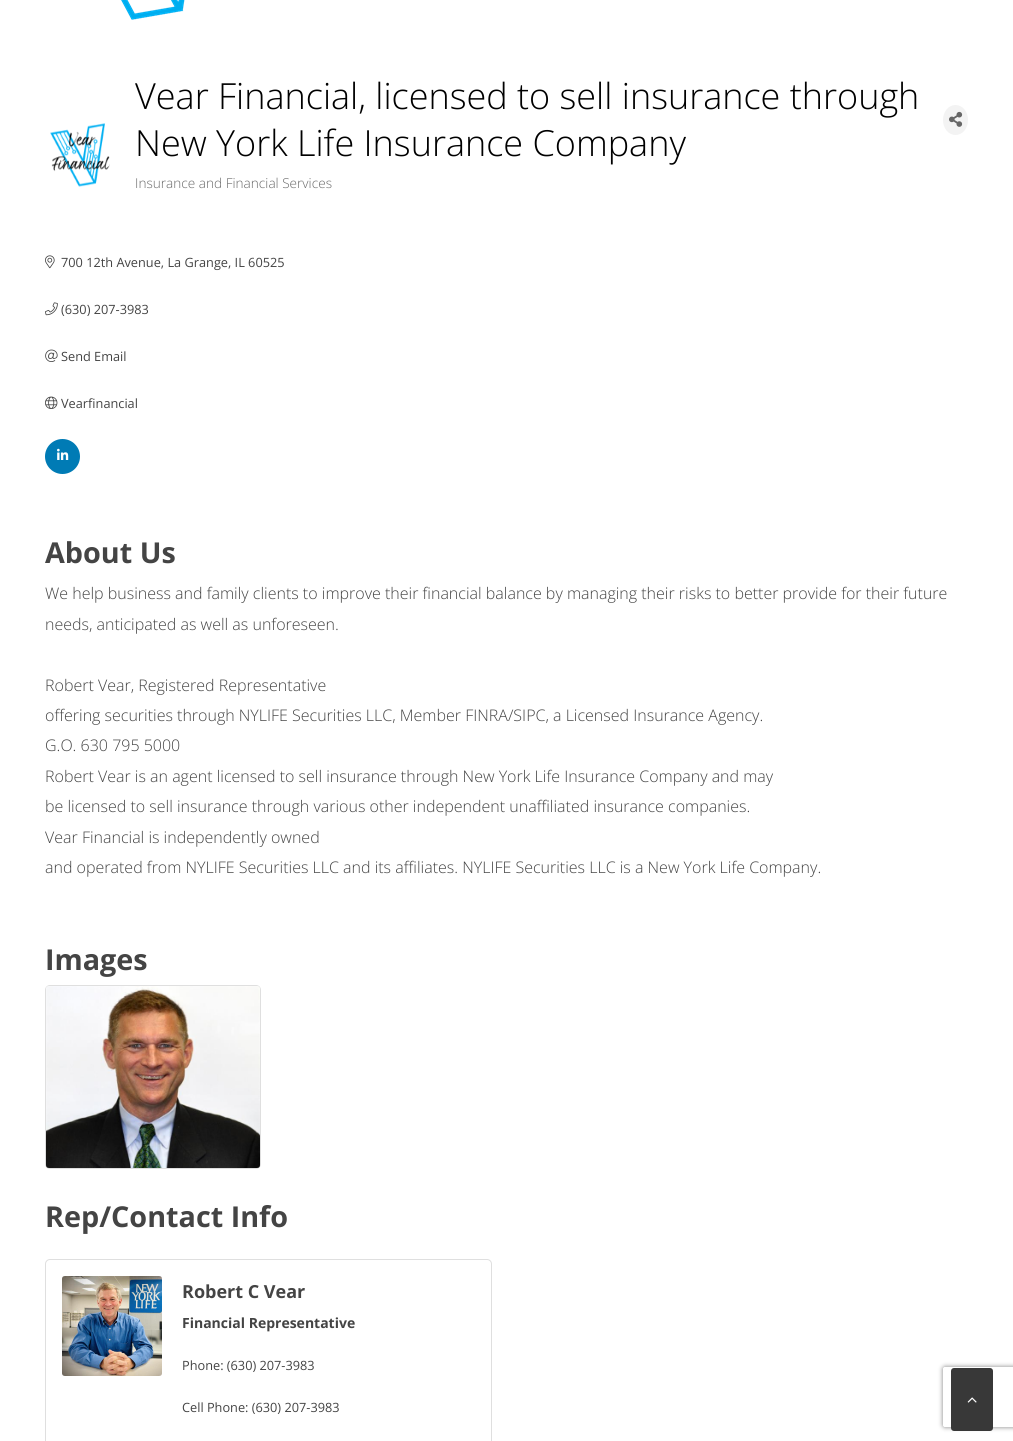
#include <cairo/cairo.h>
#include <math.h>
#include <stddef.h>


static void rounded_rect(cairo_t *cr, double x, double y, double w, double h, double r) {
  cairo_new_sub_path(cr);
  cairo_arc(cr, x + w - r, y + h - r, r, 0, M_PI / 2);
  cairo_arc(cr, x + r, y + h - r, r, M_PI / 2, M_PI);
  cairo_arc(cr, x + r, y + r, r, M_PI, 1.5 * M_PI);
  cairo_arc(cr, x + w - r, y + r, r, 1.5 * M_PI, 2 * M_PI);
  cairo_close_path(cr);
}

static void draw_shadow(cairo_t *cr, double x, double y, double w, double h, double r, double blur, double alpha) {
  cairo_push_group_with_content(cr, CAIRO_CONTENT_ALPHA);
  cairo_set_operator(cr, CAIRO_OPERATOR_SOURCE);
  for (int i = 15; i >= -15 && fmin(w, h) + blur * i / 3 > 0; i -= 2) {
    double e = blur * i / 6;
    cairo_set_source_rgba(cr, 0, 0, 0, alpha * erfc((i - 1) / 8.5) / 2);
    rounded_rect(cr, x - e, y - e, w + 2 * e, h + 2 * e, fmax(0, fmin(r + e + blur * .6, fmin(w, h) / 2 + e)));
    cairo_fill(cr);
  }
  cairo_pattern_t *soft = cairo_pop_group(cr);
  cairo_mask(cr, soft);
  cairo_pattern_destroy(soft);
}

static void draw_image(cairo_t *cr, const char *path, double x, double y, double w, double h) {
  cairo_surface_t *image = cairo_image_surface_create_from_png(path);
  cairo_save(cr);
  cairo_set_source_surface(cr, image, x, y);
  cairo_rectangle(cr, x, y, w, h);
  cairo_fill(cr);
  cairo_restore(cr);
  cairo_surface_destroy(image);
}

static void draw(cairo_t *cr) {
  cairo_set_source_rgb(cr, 1, 1, 1);
  cairo_paint(cr);
  draw_image(cr, "images/1.png", 121, 0, 64, 20);
  draw_image(cr, "images/2.png", 50, 123, 60, 64);
  cairo_set_source_rgb(cr, 243 / 255.0, 243 / 255.0, 243 / 255.0);
  cairo_new_path(cr);
  cairo_move_to(cr, 955.5, 105);
  cairo_curve_to(cr, 962.5, 105, 968, 111.5, 968, 120);
  cairo_curve_to(cr, 968, 128.5, 962.5, 135, 955.5, 135);
  cairo_curve_to(cr, 948.5, 135, 943, 128.5, 943, 120);
  cairo_curve_to(cr, 943, 111.5, 948.5, 105, 955.5, 105);
  cairo_close_path(cr);
  cairo_fill(cr);
  draw_image(cr, "images/3.png", 949, 111, 14, 16);
  draw_image(cr, "images/4.png", 45, 255, 10, 14);
  draw_image(cr, "images/5.png", 45, 302, 13, 14);
  draw_image(cr, "images/6.png", 45, 349, 13, 13);
  draw_image(cr, "images/7.png", 45, 396, 13, 13);
  cairo_set_source_rgb(cr, 0, 123 / 255.0, 181 / 255.0);
  cairo_arc(cr, 62.5, 456.5, 17.5, 0, 2 * M_PI);
  cairo_fill(cr);
  draw_image(cr, "images/8.png", 57, 448, 12, 12);
  rounded_rect(cr, 45.5, 985.5, 215, 183, 4.5);
  cairo_set_source_rgb(cr, 223 / 255.0, 223 / 255.0, 223 / 255.0);
  cairo_set_line_width(cr, 1);
  cairo_stroke(cr);
  draw_image(cr, "images/9.png", 46, 986, 214, 182);
  rounded_rect(cr, 45.5, 1259.5, 446, 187, 4.5);
  cairo_stroke(cr);
  draw_image(cr, "images/10.png", 62, 1276, 100, 100);
  cairo_save(cr);
  cairo_set_fill_rule(cr, CAIRO_FILL_RULE_EVEN_ODD);
  cairo_new_path(cr);
  cairo_move_to(cr, 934, 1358);
  cairo_line_to(cr, 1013, 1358);
  cairo_line_to(cr, 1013, 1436);
  cairo_line_to(cr, 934, 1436);
  cairo_close_path(cr);
  cairo_move_to(cr, 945, 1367);
  cairo_line_to(cr, 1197, 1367);
  cairo_curve_to(cr, 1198, 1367, 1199, 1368, 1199, 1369);
  cairo_line_to(cr, 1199, 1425);
  cairo_curve_to(cr, 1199, 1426, 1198, 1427, 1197, 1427);
  cairo_line_to(cr, 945, 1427);
  cairo_curve_to(cr, 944, 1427, 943, 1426, 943, 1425);
  cairo_line_to(cr, 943, 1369);
  cairo_curve_to(cr, 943, 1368, 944, 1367, 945, 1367);
  cairo_close_path(cr);
  cairo_clip(cr);
  cairo_set_source_rgb(cr, 128 / 255.0, 128 / 255.0, 128 / 255.0);
  draw_shadow(cr, 943, 1367, 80, 60, 2, 2.5, 1);
  cairo_restore(cr);
  cairo_set_source_rgb(cr, 56 / 255.0, 56 / 255.0, 56 / 255.0);
  rounded_rect(cr, 951, 1368, 42, 63, 3);
  cairo_fill(cr);
  draw_image(cr, "images/11.png", 967, 1397, 10, 6);
  cairo_select_font_face(cr, "Open Sans Light", CAIRO_FONT_SLANT_NORMAL, CAIRO_FONT_WEIGHT_NORMAL);
  cairo_set_font_size(cr, 36);
  cairo_set_source_rgb(cr, 0, 0, 0);
  cairo_move_to(cr, 135, 109);
  cairo_show_text(cr, "Vear Financial, licensed to sell insurance through");
  cairo_move_to(cr, 135, 156);
  cairo_show_text(cr, "New York Life Insurance Company");
  cairo_set_font_size(cr, 13.6);
  cairo_set_source_rgb(cr, 105 / 255.0, 105 / 255.0, 105 / 255.0);
  cairo_move_to(cr, 135, 188);
  cairo_show_text(cr, "Insurance and Financial Services");
  cairo_select_font_face(cr, "Open Sans", CAIRO_FONT_SLANT_NORMAL, CAIRO_FONT_WEIGHT_NORMAL);
  cairo_set_font_size(cr, 12.75);
  cairo_set_source_rgb(cr, 68 / 255.0, 68 / 255.0, 68 / 255.0);
  cairo_move_to(cr, 61, 267);
  cairo_show_text(cr, "700 12th Avenue, La Grange, IL 60525");
  cairo_move_to(cr, 61, 314);
  cairo_show_text(cr, "(630) 207-3983");
  cairo_move_to(cr, 61, 361);
  cairo_show_text(cr, "Send Email");
  cairo_move_to(cr, 61, 408);
  cairo_show_text(cr, "Vearfinancial");
  cairo_select_font_face(cr, "Open Sans", CAIRO_FONT_SLANT_NORMAL, CAIRO_FONT_WEIGHT_BOLD);
  cairo_set_font_size(cr, 28.75);
  cairo_move_to(cr, 45, 563);
  cairo_show_text(cr, "About Us");
  cairo_select_font_face(cr, "Open Sans Light", CAIRO_FONT_SLANT_NORMAL, CAIRO_FONT_WEIGHT_NORMAL);
  cairo_set_font_size(cr, 16);
  cairo_move_to(cr, 45, 599);
  cairo_show_text(cr, "We help business and family clients to improve their financial balance by managing their risks to better provide for their future");
  cairo_move_to(cr, 45, 630);
  cairo_show_text(cr, "needs, anticipated as well as unforeseen.");
  cairo_move_to(cr, 45, 691);
  cairo_show_text(cr, "Robert Vear, Registered Representative");
  cairo_move_to(cr, 45, 721);
  cairo_show_text(cr, "offering securities through NYLIFE Securities LLC, Member FINRA/SIPC, a Licensed Insurance Agency.");
  cairo_move_to(cr, 45, 751);
  cairo_show_text(cr, "G.O. 630 795 5000");
  cairo_move_to(cr, 45, 782);
  cairo_show_text(cr, "Robert Vear is an agent licensed to sell insurance through New York Life Insurance Company and may");
  cairo_move_to(cr, 45, 812);
  cairo_show_text(cr, "be licensed to sell insurance through various other independent unaffiliated insurance companies.");
  cairo_move_to(cr, 45, 843);
  cairo_show_text(cr, "Vear Financial is independently owned");
  cairo_move_to(cr, 45, 873);
  cairo_show_text(cr, "and operated from NYLIFE Securities LLC and its affiliates. NYLIFE Securities LLC is a New York Life Company.");
  cairo_select_font_face(cr, "Open Sans", CAIRO_FONT_SLANT_NORMAL, CAIRO_FONT_WEIGHT_BOLD);
  cairo_set_font_size(cr, 28.75);
  cairo_move_to(cr, 45, 970);
  cairo_show_text(cr, "Images");
  cairo_move_to(cr, 45, 1227);
  cairo_show_text(cr, "Rep/Contact Info");
  cairo_set_font_size(cr, 18);
  cairo_move_to(cr, 182, 1298);
  cairo_show_text(cr, "Robert C Vear");
  cairo_set_font_size(cr, 14);
  cairo_move_to(cr, 182, 1328);
  cairo_show_text(cr, "Financial Representative");
  cairo_select_font_face(cr, "Open Sans", CAIRO_FONT_SLANT_NORMAL, CAIRO_FONT_WEIGHT_NORMAL);
  cairo_set_font_size(cr, 12.75);
  cairo_move_to(cr, 182, 1370);
  cairo_show_text(cr, "Phone: (630) 207-3983");
  cairo_move_to(cr, 182, 1412);
  cairo_show_text(cr, "Cell Phone: (630) 207-3983");
}

int main(void) {
  cairo_surface_t *surface = cairo_image_surface_create(CAIRO_FORMAT_RGB24, 1013, 1441);
  cairo_t *cr = cairo_create(surface);
  cairo_font_options_t *options = cairo_font_options_create();
  cairo_font_options_set_hint_metrics(options, CAIRO_HINT_METRICS_OFF);
  cairo_font_options_set_hint_style(options, CAIRO_HINT_STYLE_NONE);
  cairo_set_font_options(cr, options);
  cairo_set_miter_limit(cr, 4);
  draw(cr);
  cairo_surface_write_to_png(surface, "out.png");
  cairo_font_options_destroy(options);
  cairo_destroy(cr);
  cairo_surface_destroy(surface);
  return 0;
}
